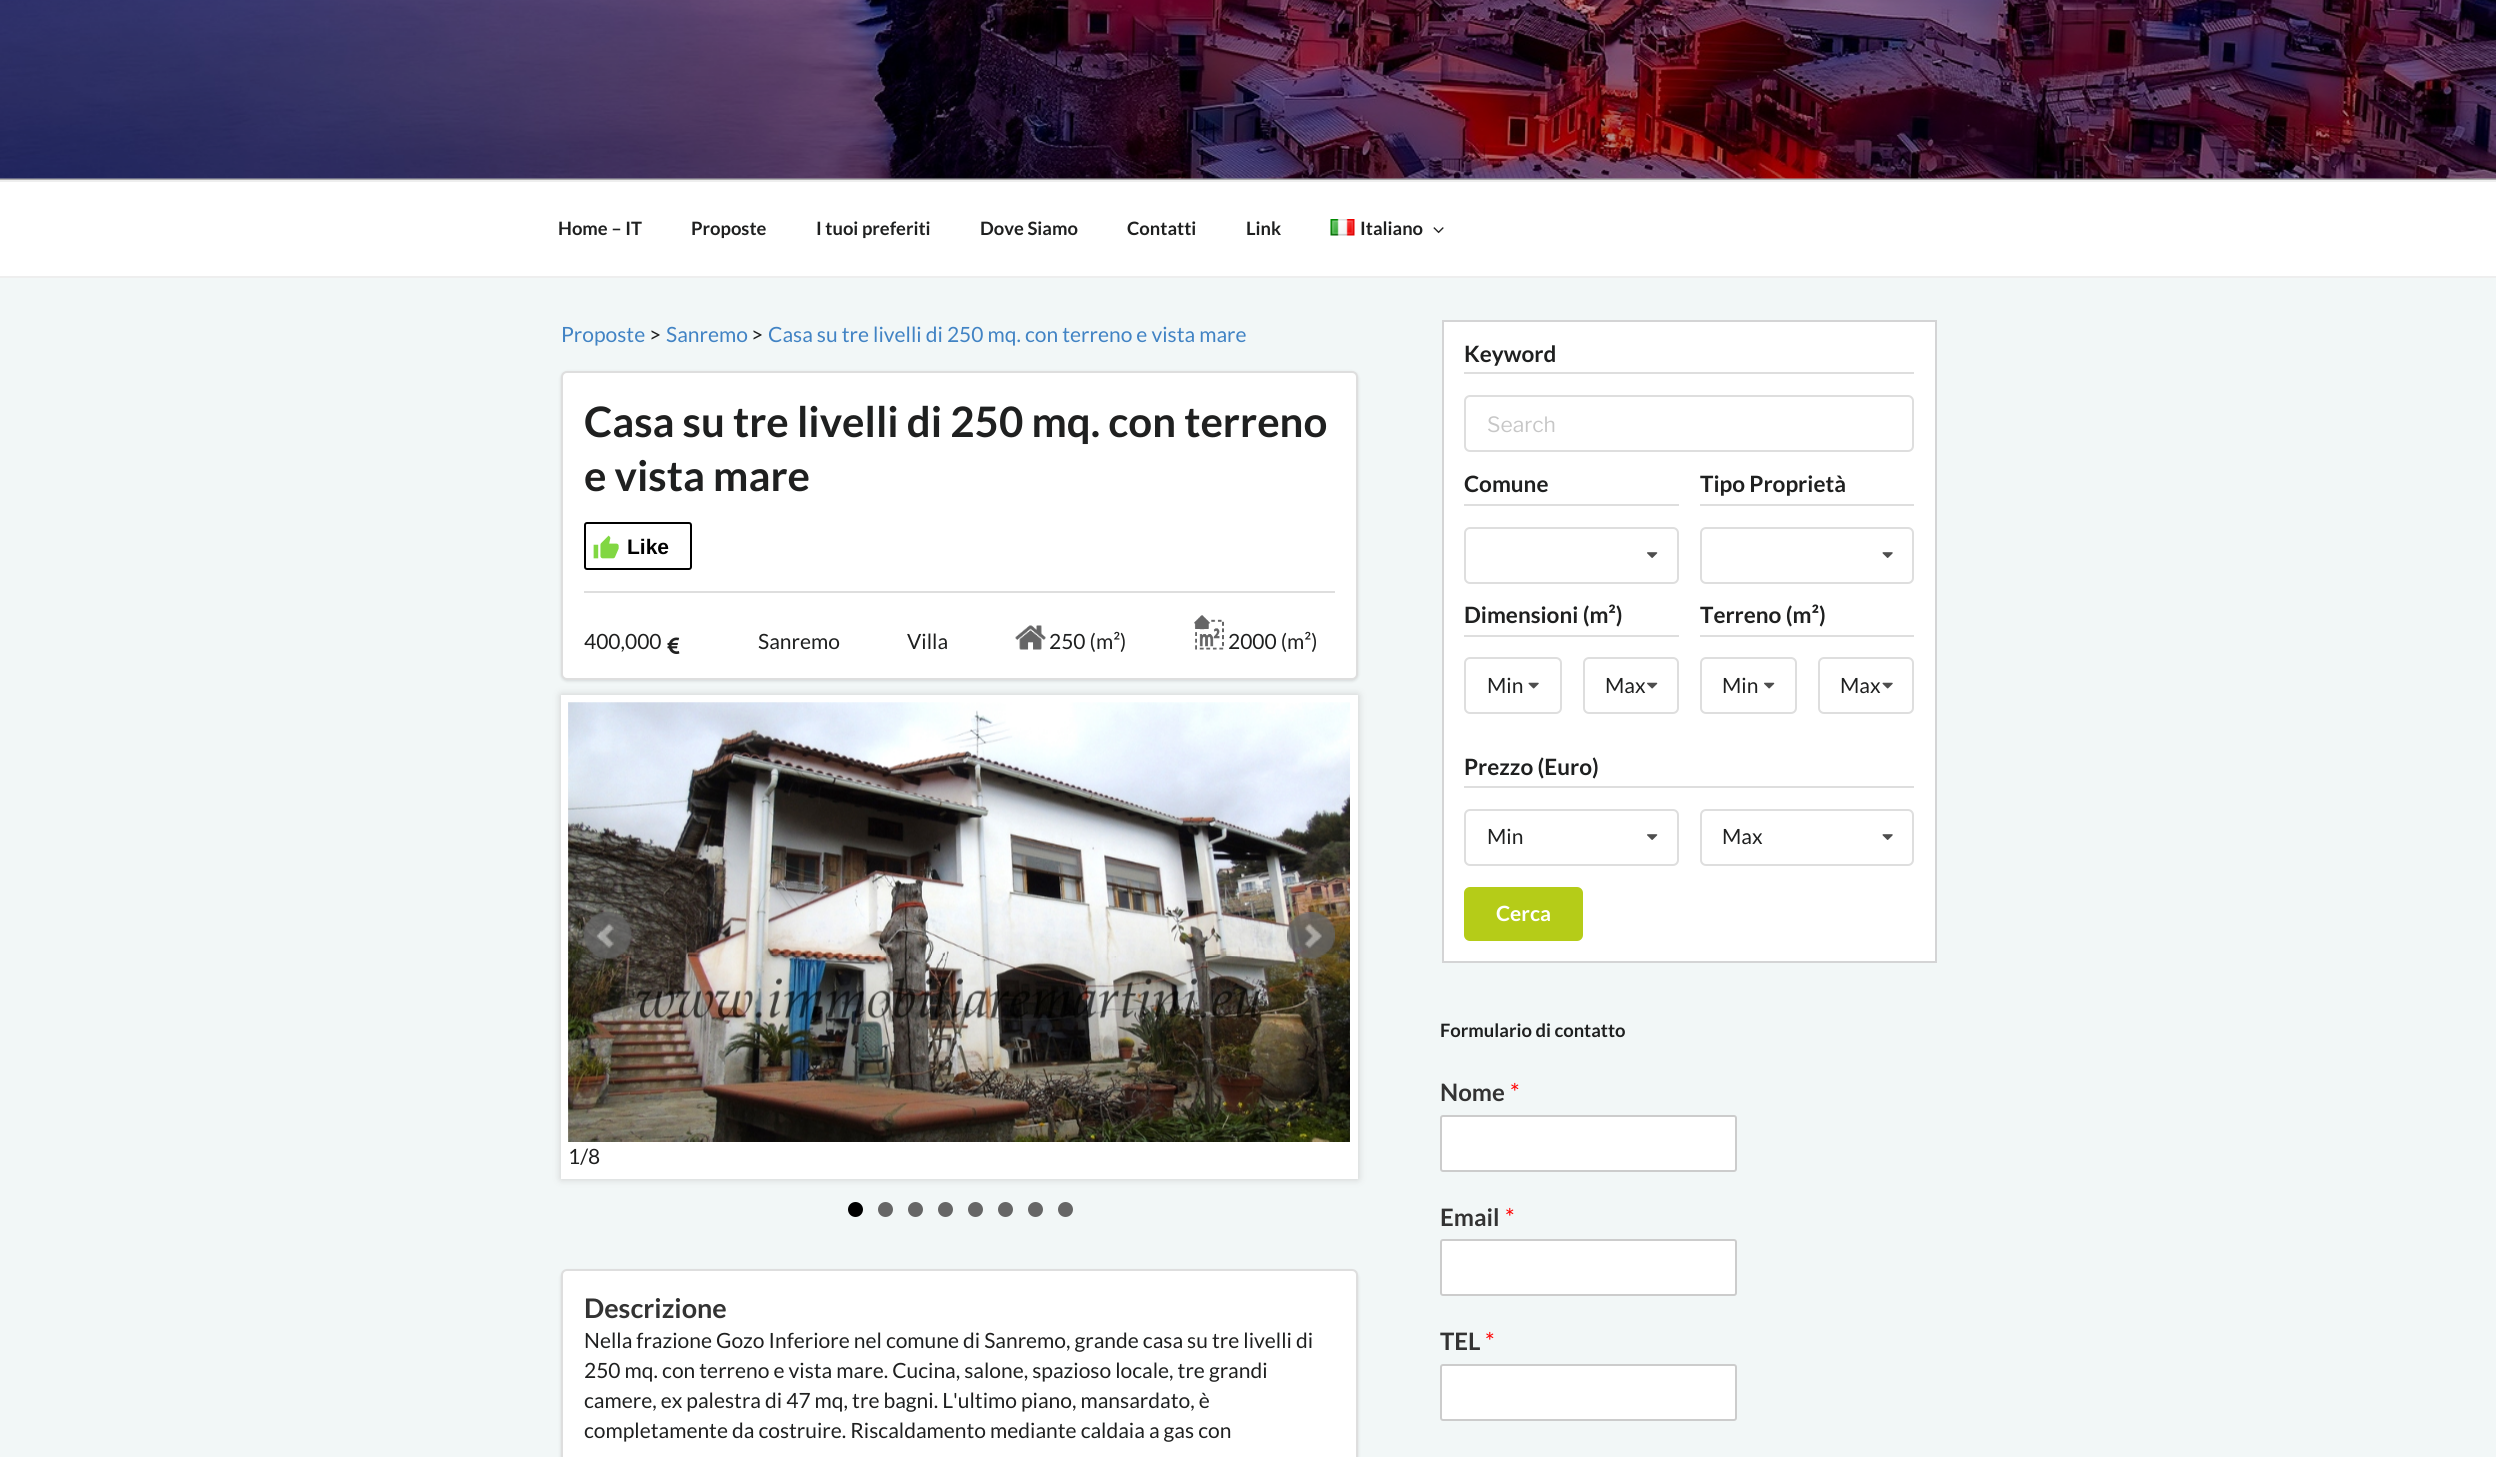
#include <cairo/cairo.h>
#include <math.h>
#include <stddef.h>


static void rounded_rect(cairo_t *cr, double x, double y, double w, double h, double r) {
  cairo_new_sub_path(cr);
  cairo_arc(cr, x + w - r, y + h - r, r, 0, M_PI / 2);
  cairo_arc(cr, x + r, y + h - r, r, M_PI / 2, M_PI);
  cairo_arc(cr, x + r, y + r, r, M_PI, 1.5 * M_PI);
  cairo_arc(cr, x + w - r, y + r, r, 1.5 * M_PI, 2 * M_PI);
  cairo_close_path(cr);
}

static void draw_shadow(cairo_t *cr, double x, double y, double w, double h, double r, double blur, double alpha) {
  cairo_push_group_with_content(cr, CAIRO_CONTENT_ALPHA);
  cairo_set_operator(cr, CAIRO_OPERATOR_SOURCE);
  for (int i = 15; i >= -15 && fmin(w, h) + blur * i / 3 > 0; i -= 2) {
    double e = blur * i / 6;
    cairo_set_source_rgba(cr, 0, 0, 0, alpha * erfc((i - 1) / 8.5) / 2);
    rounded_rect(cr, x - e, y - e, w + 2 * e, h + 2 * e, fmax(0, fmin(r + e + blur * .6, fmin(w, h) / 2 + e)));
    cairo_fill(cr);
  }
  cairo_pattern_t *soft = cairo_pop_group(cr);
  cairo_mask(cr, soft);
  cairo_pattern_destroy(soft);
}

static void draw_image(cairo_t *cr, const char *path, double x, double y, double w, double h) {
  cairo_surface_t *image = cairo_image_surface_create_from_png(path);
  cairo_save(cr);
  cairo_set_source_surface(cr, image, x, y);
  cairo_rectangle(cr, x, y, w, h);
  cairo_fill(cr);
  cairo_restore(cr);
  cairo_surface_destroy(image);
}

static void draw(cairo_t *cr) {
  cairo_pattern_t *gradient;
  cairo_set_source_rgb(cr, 250 / 255.0, 250 / 255.0, 250 / 255.0);
  cairo_paint(cr);
  draw_image(cr, "images/1.png", 0, 0, 2496, 179);
  gradient = cairo_pattern_create_linear(1248, -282, 1248, 180);
  cairo_pattern_add_color_stop_rgba(gradient, 0, 0, 0, 0, 0);
  cairo_pattern_add_color_stop_rgba(gradient, 0.75, 0, 0, 0, 0.3);
  cairo_pattern_add_color_stop_rgba(gradient, 1, 0, 0, 0, 0.3);
  cairo_set_source(cr, gradient);
  cairo_pattern_destroy(gradient);
  cairo_rectangle(cr, 0, 0, 2496, 180);
  cairo_fill(cr);
  cairo_set_source_rgb(cr, 1, 1, 1);
  cairo_rectangle(cr, 0, 182, 2496, 94);
  cairo_fill(cr);
  cairo_set_source_rgb(cr, 238 / 255.0, 238 / 255.0, 238 / 255.0);
  cairo_rectangle(cr, 0, 180, 2496, 2);
  cairo_fill(cr);
  cairo_rectangle(cr, 0, 276, 2496, 2);
  cairo_fill(cr);
  draw_image(cr, "images/2.png", 1330, 219, 25, 17);
  draw_image(cr, "images/3.png", 1433, 227, 11, 7);
  cairo_set_source_rgb(cr, 242 / 255.0, 247 / 255.0, 247 / 255.0);
  cairo_rectangle(cr, 0, 278, 2496, 1179);
  cairo_fill(cr);
  cairo_set_source_rgb(cr, 34 / 255.0, 36 / 255.0, 38 / 255.0);
  draw_shadow(cr, 561, 372, 797, 309, 6, 1.5, 0.15);
  cairo_set_source_rgb(cr, 1, 1, 1);
  rounded_rect(cr, 561, 371, 797, 309, 6);
  cairo_fill(cr);
  rounded_rect(cr, 562, 372, 795, 307, 5);
  cairo_set_source_rgba(cr, 34 / 255.0, 36 / 255.0, 38 / 255.0, 0.15);
  cairo_stroke(cr);
  rounded_rect(cr, 585, 523, 106, 46, 2);
  cairo_set_source_rgb(cr, 0, 0, 0);
  cairo_stroke(cr);
  draw_image(cr, "images/4.png", 593, 535, 26, 24);
  cairo_set_source_rgb(cr, 222 / 255.0, 222 / 255.0, 222 / 255.0);
  cairo_rectangle(cr, 584, 591, 751, 2);
  cairo_fill(cr);
  draw_image(cr, "images/5.png", 667, 637, 13, 17);
  draw_image(cr, "images/6.png", 1015, 625, 31, 25);
  draw_image(cr, "images/7.png", 1194, 615, 30, 35);
  cairo_set_source_rgb(cr, 204 / 255.0, 204 / 255.0, 204 / 255.0);
  draw_shadow(cr, 561, 695, 797, 484, 0, 4, 1);
  cairo_set_source_rgb(cr, 1, 1, 1);
  cairo_rectangle(cr, 561, 695, 797, 484);
  cairo_fill(cr);
  draw_image(cr, "images/10.png", 568, 702, 782, 440);
  draw_image(cr, "images/8.png", 583, 912, 49, 47);
  draw_image(cr, "images/9.png", 1287, 912, 48, 47);
  cairo_set_source_rgb(cr, 0, 0, 0);
  cairo_arc(cr, 855.5, 1209.5, 7.5, 0, 2 * M_PI);
  cairo_fill(cr);
  cairo_set_source_rgb(cr, 102 / 255.0, 102 / 255.0, 102 / 255.0);
  cairo_arc(cr, 885.5, 1209.5, 7.5, 0, 2 * M_PI);
  cairo_fill(cr);
  cairo_arc(cr, 915.5, 1209.5, 7.5, 0, 2 * M_PI);
  cairo_fill(cr);
  cairo_arc(cr, 945.5, 1209.5, 7.5, 0, 2 * M_PI);
  cairo_fill(cr);
  cairo_arc(cr, 975.5, 1209.5, 7.5, 0, 2 * M_PI);
  cairo_fill(cr);
  cairo_arc(cr, 1005.5, 1209.5, 7.5, 0, 2 * M_PI);
  cairo_fill(cr);
  cairo_arc(cr, 1035.5, 1209.5, 7.5, 0, 2 * M_PI);
  cairo_fill(cr);
  cairo_arc(cr, 1065.5, 1209.5, 7.5, 0, 2 * M_PI);
  cairo_fill(cr);
  cairo_set_source_rgb(cr, 34 / 255.0, 36 / 255.0, 38 / 255.0);
  draw_shadow(cr, 561, 1271, 797, 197, 6, 1.5, 0.15);
  cairo_set_source_rgb(cr, 1, 1, 1);
  rounded_rect(cr, 561, 1269, 797, 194, 6);
  cairo_fill(cr);
  rounded_rect(cr, 562, 1270, 795, 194, 5);
  cairo_set_source_rgba(cr, 34 / 255.0, 36 / 255.0, 38 / 255.0, 0.15);
  cairo_stroke(cr);
  cairo_set_source_rgb(cr, 1, 1, 1);
  cairo_rectangle(cr, 1443, 321, 493, 641);
  cairo_fill_preserve(cr);
  cairo_set_source_rgb(cr, 212 / 255.0, 212 / 255.0, 213 / 255.0);
  cairo_stroke(cr);
  cairo_set_source_rgb(cr, 222 / 255.0, 222 / 255.0, 222 / 255.0);
  cairo_rectangle(cr, 1464, 372, 450, 2);
  cairo_fill(cr);
  rounded_rect(cr, 1465, 396, 448, 55, 5);
  cairo_stroke(cr);
  cairo_rectangle(cr, 1464, 504, 215, 2);
  cairo_fill(cr);
  rounded_rect(cr, 1465, 528, 213, 55, 5);
  cairo_stroke(cr);
  draw_image(cr, "images/11.png", 1647, 552, 11, 6);
  cairo_rectangle(cr, 1700, 504, 214, 2);
  cairo_fill(cr);
  rounded_rect(cr, 1701, 528, 212, 55, 5);
  cairo_stroke(cr);
  draw_image(cr, "images/12.png", 1882, 552, 11, 6);
  cairo_rectangle(cr, 1464, 635, 215, 2);
  cairo_fill(cr);
  rounded_rect(cr, 1465, 658, 96, 55, 5);
  cairo_stroke(cr);
  draw_image(cr, "images/13.png", 1528, 682, 11, 7);
  rounded_rect(cr, 1584, 658, 94, 55, 5);
  cairo_stroke(cr);
  draw_image(cr, "images/14.png", 1647, 682, 11, 7);
  cairo_rectangle(cr, 1700, 635, 214, 2);
  cairo_fill(cr);
  rounded_rect(cr, 1701, 658, 95, 55, 5);
  cairo_stroke(cr);
  draw_image(cr, "images/14.png", 1764, 682, 11, 7);
  rounded_rect(cr, 1819, 658, 94, 55, 5);
  cairo_stroke(cr);
  draw_image(cr, "images/13.png", 1882, 682, 11, 7);
  cairo_rectangle(cr, 1464, 786, 450, 2);
  cairo_fill(cr);
  rounded_rect(cr, 1465, 810, 213, 55, 5);
  cairo_stroke(cr);
  draw_image(cr, "images/11.png", 1647, 834, 11, 6);
  rounded_rect(cr, 1701, 810, 212, 55, 5);
  cairo_stroke(cr);
  draw_image(cr, "images/12.png", 1882, 834, 11, 6);
  cairo_set_source_rgb(cr, 181 / 255.0, 204 / 255.0, 24 / 255.0);
  rounded_rect(cr, 1464, 887, 119, 54, 6);
  cairo_fill(cr);
  cairo_set_source_rgb(cr, 1, 1, 1);
  rounded_rect(cr, 1441, 1116, 295, 55, 2);
  cairo_fill_preserve(cr);
  cairo_set_source_rgb(cr, 204 / 255.0, 204 / 255.0, 204 / 255.0);
  cairo_stroke(cr);
  cairo_set_source_rgb(cr, 1, 1, 1);
  rounded_rect(cr, 1441, 1240, 295, 55, 2);
  cairo_fill_preserve(cr);
  cairo_set_source_rgb(cr, 204 / 255.0, 204 / 255.0, 204 / 255.0);
  cairo_stroke(cr);
  cairo_set_source_rgb(cr, 1, 1, 1);
  rounded_rect(cr, 1441, 1365, 295, 55, 2);
  cairo_fill_preserve(cr);
  cairo_set_source_rgb(cr, 204 / 255.0, 204 / 255.0, 204 / 255.0);
  cairo_stroke(cr);
  cairo_select_font_face(cr, "Lato", CAIRO_FONT_SLANT_NORMAL, CAIRO_FONT_WEIGHT_BOLD);
  cairo_set_font_size(cr, 18.4);
  cairo_set_source_rgb(cr, 31 / 255.0, 32 / 255.0, 32 / 255.0);
  cairo_move_to(cr, 558, 235);
  cairo_show_text(cr, "Home – IT");
  cairo_move_to(cr, 691, 235);
  cairo_show_text(cr, "Proposte");
  cairo_move_to(cr, 816, 235);
  cairo_show_text(cr, "I tuoi preferiti");
  cairo_move_to(cr, 980, 235);
  cairo_show_text(cr, "Dove Siamo");
  cairo_move_to(cr, 1127, 235);
  cairo_show_text(cr, "Contatti");
  cairo_move_to(cr, 1246, 235);
  cairo_show_text(cr, "Link");
  cairo_move_to(cr, 1360, 235);
  cairo_show_text(cr, "Italiano");
  cairo_select_font_face(cr, "Lato", CAIRO_FONT_SLANT_NORMAL, CAIRO_FONT_WEIGHT_NORMAL);
  cairo_set_font_size(cr, 21);
  cairo_set_source_rgb(cr, 65 / 255.0, 131 / 255.0, 196 / 255.0);
  cairo_move_to(cr, 561, 342);
  cairo_show_text(cr, "Proposte");
  cairo_set_source_rgb(cr, 31 / 255.0, 32 / 255.0, 32 / 255.0);
  cairo_move_to(cr, 649, 342);
  cairo_show_text(cr, ">");
  cairo_set_source_rgb(cr, 65 / 255.0, 131 / 255.0, 196 / 255.0);
  cairo_move_to(cr, 666, 342);
  cairo_show_text(cr, "Sanremo");
  cairo_set_source_rgb(cr, 31 / 255.0, 32 / 255.0, 32 / 255.0);
  cairo_move_to(cr, 751, 342);
  cairo_show_text(cr, ">");
  cairo_set_source_rgb(cr, 65 / 255.0, 131 / 255.0, 196 / 255.0);
  cairo_move_to(cr, 768, 342);
  cairo_show_text(cr, "Casa su tre livelli di 250 mq. con terreno e vista mare");
  cairo_select_font_face(cr, "Lato", CAIRO_FONT_SLANT_NORMAL, CAIRO_FONT_WEIGHT_BOLD);
  cairo_set_font_size(cr, 42);
  cairo_set_source_rgb(cr, 31 / 255.0, 32 / 255.0, 32 / 255.0);
  cairo_move_to(cr, 584, 437);
  cairo_show_text(cr, "Casa su tre livelli di 250 mq. con terreno");
  cairo_move_to(cr, 584, 491);
  cairo_show_text(cr, "e vista mare");
  cairo_select_font_face(cr, "Liberation Sans", CAIRO_FONT_SLANT_NORMAL, CAIRO_FONT_WEIGHT_BOLD);
  cairo_set_font_size(cr, 21);
  cairo_set_source_rgb(cr, 0, 0, 0);
  cairo_move_to(cr, 627, 554);
  cairo_show_text(cr, "Like");
  cairo_select_font_face(cr, "Lato", CAIRO_FONT_SLANT_NORMAL, CAIRO_FONT_WEIGHT_NORMAL);
  cairo_set_source_rgb(cr, 31 / 255.0, 32 / 255.0, 32 / 255.0);
  cairo_move_to(cr, 584, 649);
  cairo_show_text(cr, "400,000");
  cairo_move_to(cr, 758, 649);
  cairo_show_text(cr, "Sanremo");
  cairo_move_to(cr, 907, 649);
  cairo_show_text(cr, "Villa");
  cairo_move_to(cr, 1049, 649);
  cairo_show_text(cr, "250 (m²)");
  cairo_move_to(cr, 1228, 649);
  cairo_show_text(cr, "2000 (m²)");
  cairo_move_to(cr, 568, 1164);
  cairo_show_text(cr, "1/8");
  cairo_select_font_face(cr, "Lato", CAIRO_FONT_SLANT_NORMAL, CAIRO_FONT_WEIGHT_BOLD);
  cairo_set_font_size(cr, 27);
  cairo_set_source_rgb(cr, 51 / 255.0, 51 / 255.0, 51 / 255.0);
  cairo_move_to(cr, 584, 1318);
  cairo_show_text(cr, "Descrizione");
  cairo_select_font_face(cr, "Lato", CAIRO_FONT_SLANT_NORMAL, CAIRO_FONT_WEIGHT_NORMAL);
  cairo_set_font_size(cr, 21);
  cairo_set_source_rgb(cr, 31 / 255.0, 32 / 255.0, 32 / 255.0);
  cairo_move_to(cr, 584, 1348);
  cairo_show_text(cr, "Nella frazione Gozo Inferiore nel comune di Sanremo, grande casa su tre livelli di");
  cairo_move_to(cr, 584, 1378);
  cairo_show_text(cr, "250 mq. con terreno e vista mare. Cucina, salone, spazioso locale, tre grandi");
  cairo_move_to(cr, 584, 1408);
  cairo_show_text(cr, "camere, ex palestra di 47 mq, tre bagni. L'ultimo piano, mansardato, è");
  cairo_move_to(cr, 584, 1438);
  cairo_show_text(cr, "completamente da costruire. Riscaldamento mediante caldaia a gas con");
  cairo_select_font_face(cr, "Lato", CAIRO_FONT_SLANT_NORMAL, CAIRO_FONT_WEIGHT_BOLD);
  cairo_set_font_size(cr, 22.5);
  cairo_move_to(cr, 1464, 362);
  cairo_show_text(cr, "Keyword");
  cairo_select_font_face(cr, "Libre Franklin", CAIRO_FONT_SLANT_NORMAL, CAIRO_FONT_WEIGHT_NORMAL);
  cairo_set_font_size(cr, 21);
  cairo_set_source_rgb(cr, 199 / 255.0, 199 / 255.0, 199 / 255.0);
  cairo_move_to(cr, 1487, 432);
  cairo_show_text(cr, "Search");
  cairo_select_font_face(cr, "Lato", CAIRO_FONT_SLANT_NORMAL, CAIRO_FONT_WEIGHT_BOLD);
  cairo_set_font_size(cr, 22.5);
  cairo_set_source_rgb(cr, 31 / 255.0, 32 / 255.0, 32 / 255.0);
  cairo_move_to(cr, 1464, 492);
  cairo_show_text(cr, "Comune");
  cairo_move_to(cr, 1700, 492);
  cairo_show_text(cr, "Tipo Proprietà");
  cairo_move_to(cr, 1464, 623);
  cairo_show_text(cr, "Dimensioni (m²)");
  cairo_select_font_face(cr, "Lato", CAIRO_FONT_SLANT_NORMAL, CAIRO_FONT_WEIGHT_NORMAL);
  cairo_set_font_size(cr, 21);
  cairo_move_to(cr, 1487, 693);
  cairo_show_text(cr, "Min");
  cairo_move_to(cr, 1605, 693);
  cairo_show_text(cr, "Max");
  cairo_select_font_face(cr, "Lato", CAIRO_FONT_SLANT_NORMAL, CAIRO_FONT_WEIGHT_BOLD);
  cairo_set_font_size(cr, 22.5);
  cairo_move_to(cr, 1700, 623);
  cairo_show_text(cr, "Terreno (m²)");
  cairo_select_font_face(cr, "Lato", CAIRO_FONT_SLANT_NORMAL, CAIRO_FONT_WEIGHT_NORMAL);
  cairo_set_font_size(cr, 21);
  cairo_move_to(cr, 1722, 693);
  cairo_show_text(cr, "Min");
  cairo_move_to(cr, 1840, 693);
  cairo_show_text(cr, "Max");
  cairo_select_font_face(cr, "Lato", CAIRO_FONT_SLANT_NORMAL, CAIRO_FONT_WEIGHT_BOLD);
  cairo_set_font_size(cr, 22.5);
  cairo_move_to(cr, 1464, 775);
  cairo_show_text(cr, "Prezzo (Euro)");
  cairo_select_font_face(cr, "Lato", CAIRO_FONT_SLANT_NORMAL, CAIRO_FONT_WEIGHT_NORMAL);
  cairo_set_font_size(cr, 21);
  cairo_move_to(cr, 1487, 844);
  cairo_show_text(cr, "Min");
  cairo_move_to(cr, 1722, 844);
  cairo_show_text(cr, "Max");
  cairo_select_font_face(cr, "Lato", CAIRO_FONT_SLANT_NORMAL, CAIRO_FONT_WEIGHT_BOLD);
  cairo_set_source_rgb(cr, 1, 1, 1);
  cairo_move_to(cr, 1496, 921);
  cairo_show_text(cr, "Cerca");
  cairo_set_font_size(cr, 18.4);
  cairo_set_source_rgb(cr, 31 / 255.0, 32 / 255.0, 32 / 255.0);
  cairo_move_to(cr, 1440, 1037);
  cairo_show_text(cr, "Formulario di contatto");
  cairo_set_font_size(cr, 24);
  cairo_set_source_rgb(cr, 51 / 255.0, 51 / 255.0, 51 / 255.0);
  cairo_move_to(cr, 1440, 1101);
  cairo_show_text(cr, "Nome");
  cairo_select_font_face(cr, "Lato", CAIRO_FONT_SLANT_NORMAL, CAIRO_FONT_WEIGHT_NORMAL);
  cairo_set_source_rgb(cr, 1, 0, 0);
  cairo_move_to(cr, 1510, 1101);
  cairo_show_text(cr, "*");
  cairo_select_font_face(cr, "Lato", CAIRO_FONT_SLANT_NORMAL, CAIRO_FONT_WEIGHT_BOLD);
  cairo_set_source_rgb(cr, 51 / 255.0, 51 / 255.0, 51 / 255.0);
  cairo_move_to(cr, 1440, 1226);
  cairo_show_text(cr, "Email");
  cairo_select_font_face(cr, "Lato", CAIRO_FONT_SLANT_NORMAL, CAIRO_FONT_WEIGHT_NORMAL);
  cairo_set_source_rgb(cr, 1, 0, 0);
  cairo_move_to(cr, 1505, 1226);
  cairo_show_text(cr, "*");
  cairo_select_font_face(cr, "Lato", CAIRO_FONT_SLANT_NORMAL, CAIRO_FONT_WEIGHT_BOLD);
  cairo_set_source_rgb(cr, 51 / 255.0, 51 / 255.0, 51 / 255.0);
  cairo_move_to(cr, 1440, 1350);
  cairo_show_text(cr, "TEL");
  cairo_select_font_face(cr, "Lato", CAIRO_FONT_SLANT_NORMAL, CAIRO_FONT_WEIGHT_NORMAL);
  cairo_set_source_rgb(cr, 1, 0, 0);
  cairo_move_to(cr, 1485, 1350);
  cairo_show_text(cr, "*");
}

int main(void) {
  cairo_surface_t *surface = cairo_image_surface_create(CAIRO_FORMAT_RGB24, 2496, 1457);
  cairo_t *cr = cairo_create(surface);
  cairo_font_options_t *options = cairo_font_options_create();
  cairo_font_options_set_hint_metrics(options, CAIRO_HINT_METRICS_OFF);
  cairo_font_options_set_hint_style(options, CAIRO_HINT_STYLE_NONE);
  cairo_set_font_options(cr, options);
  cairo_set_miter_limit(cr, 4);
  draw(cr);
  cairo_surface_write_to_png(surface, "out.png");
  cairo_font_options_destroy(options);
  cairo_destroy(cr);
  cairo_surface_destroy(surface);
  return 0;
}
